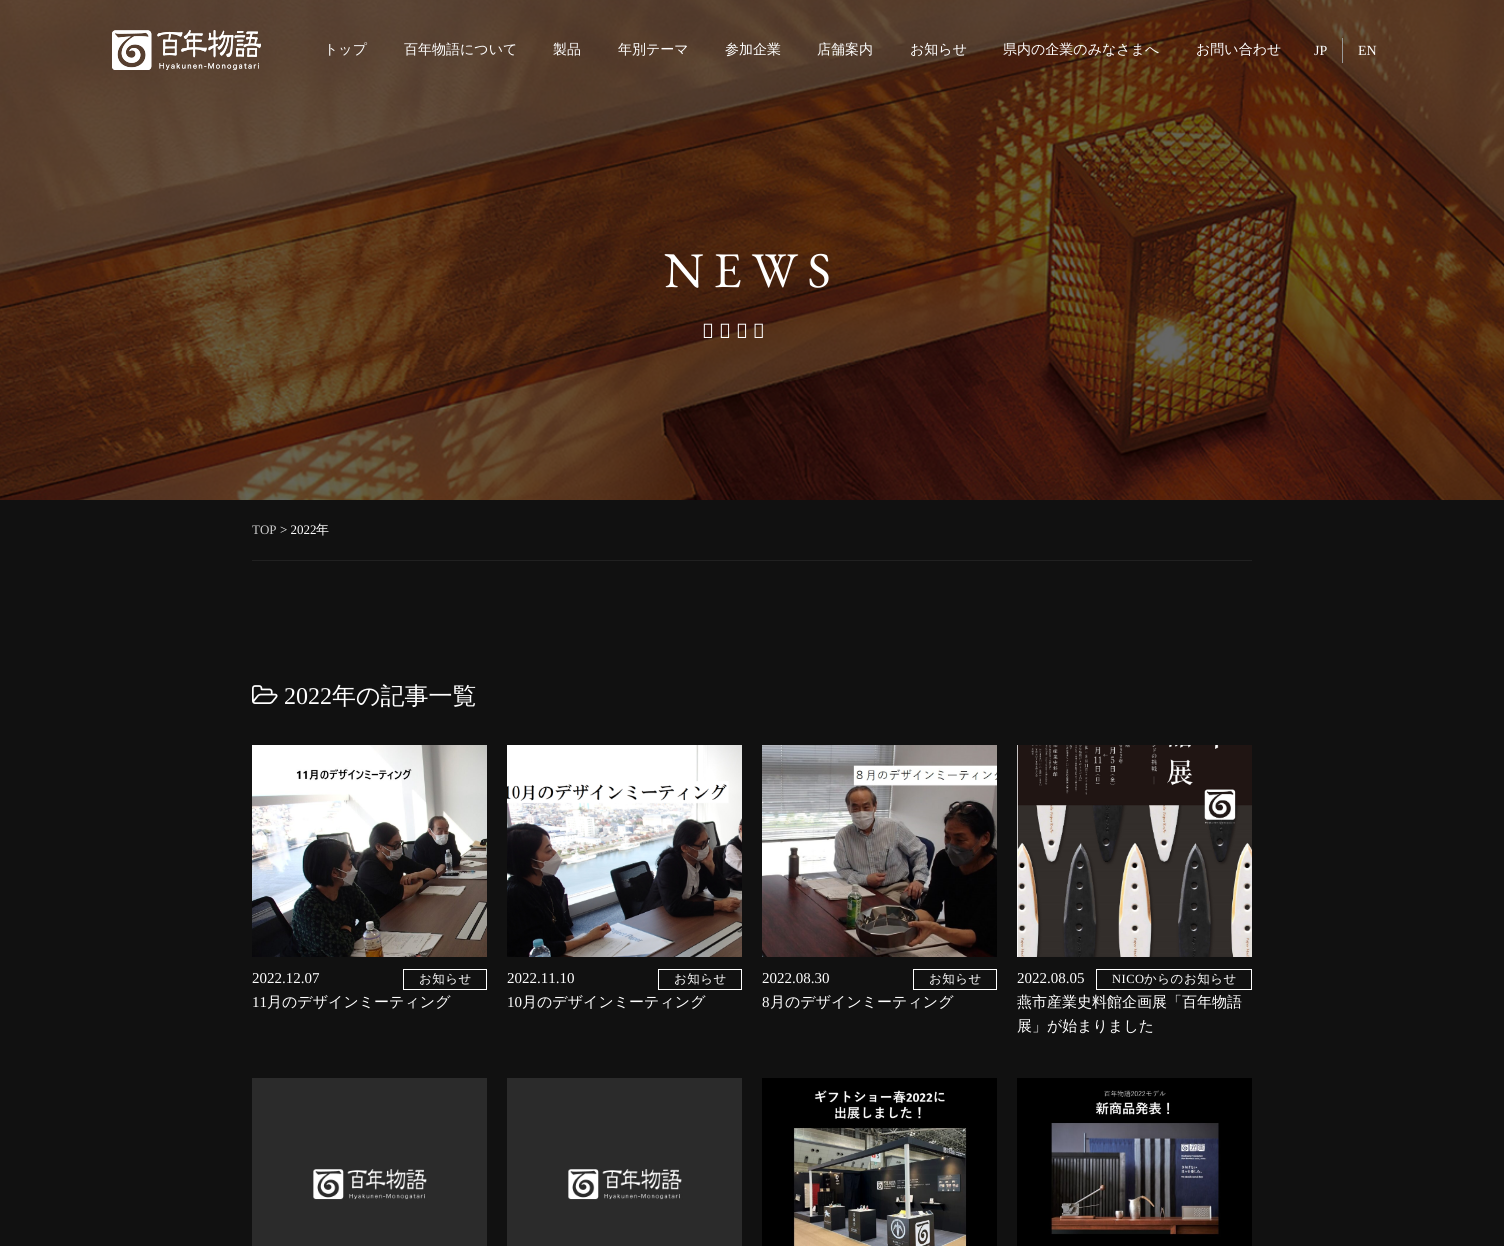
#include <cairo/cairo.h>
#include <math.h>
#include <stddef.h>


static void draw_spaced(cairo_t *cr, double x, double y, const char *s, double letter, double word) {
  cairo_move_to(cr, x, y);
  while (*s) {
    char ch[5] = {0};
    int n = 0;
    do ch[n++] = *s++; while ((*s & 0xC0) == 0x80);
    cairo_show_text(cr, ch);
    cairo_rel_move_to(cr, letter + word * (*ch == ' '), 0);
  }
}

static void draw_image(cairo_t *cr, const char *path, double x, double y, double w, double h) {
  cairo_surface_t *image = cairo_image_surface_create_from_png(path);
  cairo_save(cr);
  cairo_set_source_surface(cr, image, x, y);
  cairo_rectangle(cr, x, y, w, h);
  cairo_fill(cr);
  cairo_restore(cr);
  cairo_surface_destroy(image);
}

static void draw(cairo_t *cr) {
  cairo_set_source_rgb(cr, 17 / 255.0, 17 / 255.0, 17 / 255.0);
  cairo_paint(cr);
  draw_image(cr, "images/3.png", 0, 0, 1504, 500);
  draw_image(cr, "images/1.png", 112, 30, 149, 40);
  draw_image(cr, "images/2.png", 112, 30, 149, 40);
  cairo_set_source_rgb(cr, 153 / 255.0, 153 / 255.0, 153 / 255.0);
  cairo_rectangle(cr, 1342, 38, 1, 25);
  cairo_fill(cr);
  cairo_set_source_rgb(cr, 33 / 255.0, 33 / 255.0, 33 / 255.0);
  cairo_rectangle(cr, 252, 560, 1000, 1);
  cairo_fill(cr);
  draw_image(cr, "images/4.png", 252, 685, 26, 19);
  draw_image(cr, "images/5.png", 252, 745, 235, 212);
  cairo_rectangle(cr, 403.5, 969.5, 83, 20);
  cairo_set_source_rgb(cr, 1, 1, 1);
  cairo_set_line_width(cr, 1);
  cairo_stroke(cr);
  draw_image(cr, "images/6.png", 507, 745, 235, 212);
  cairo_rectangle(cr, 658.5, 969.5, 83, 20);
  cairo_stroke(cr);
  draw_image(cr, "images/7.png", 762, 745, 235, 212);
  cairo_rectangle(cr, 913.5, 969.5, 83, 20);
  cairo_stroke(cr);
  draw_image(cr, "images/8.png", 1017, 745, 235, 212);
  cairo_rectangle(cr, 1096.5, 969.5, 155, 20);
  cairo_stroke(cr);
  draw_image(cr, "images/9.png", 252, 1078, 235, 168);
  draw_image(cr, "images/9.png", 507, 1078, 235, 168);
  draw_image(cr, "images/10.png", 762, 1078, 235, 168);
  draw_image(cr, "images/11.png", 1017, 1078, 235, 168);
  cairo_select_font_face(cr, "WenQuanYi Zen Hei Medium", CAIRO_FONT_SLANT_NORMAL, CAIRO_FONT_WEIGHT_NORMAL);
  cairo_set_font_size(cr, 14);
  cairo_move_to(cr, 324, 54);
  cairo_show_text(cr, "トップ");
  cairo_move_to(cr, 404, 54);
  cairo_show_text(cr, "百年物語について");
  cairo_move_to(cr, 553, 54);
  cairo_show_text(cr, "製品");
  cairo_move_to(cr, 618, 54);
  cairo_show_text(cr, "年別テーマ");
  cairo_move_to(cr, 725, 54);
  cairo_show_text(cr, "参加企業");
  cairo_move_to(cr, 817, 54);
  cairo_show_text(cr, "店舗案内");
  cairo_move_to(cr, 910, 54);
  cairo_show_text(cr, "お知らせ");
  cairo_move_to(cr, 1003, 54);
  cairo_show_text(cr, "県内の企業のみなさまへ");
  cairo_move_to(cr, 1196, 54);
  cairo_show_text(cr, "お問い合わせ");
  cairo_select_font_face(cr, "Liberation Serif", CAIRO_FONT_SLANT_NORMAL, CAIRO_FONT_WEIGHT_NORMAL);
  cairo_move_to(cr, 1314, 55);
  cairo_show_text(cr, "JP");
  cairo_move_to(cr, 1358, 55);
  cairo_show_text(cr, "EN");
  cairo_select_font_face(cr, "EB Garamond", CAIRO_FONT_SLANT_NORMAL, CAIRO_FONT_WEIGHT_NORMAL);
  cairo_set_font_size(cr, 50);
  draw_spaced(cr, 664, 287, "NEWS", 10, 0);
  cairo_select_font_face(cr, "Noto Sans Medium", CAIRO_FONT_SLANT_NORMAL, CAIRO_FONT_WEIGHT_NORMAL);
  cairo_set_font_size(cr, 20);
  draw_spaced(cr, 702, 338, "お知らせ", 5, 0);
  cairo_select_font_face(cr, "Liberation Serif", CAIRO_FONT_SLANT_NORMAL, CAIRO_FONT_WEIGHT_NORMAL);
  cairo_set_font_size(cr, 13);
  cairo_set_source_rgb(cr, 204 / 255.0, 204 / 255.0, 204 / 255.0);
  cairo_move_to(cr, 252, 534);
  cairo_show_text(cr, "TOP");
  cairo_set_source_rgb(cr, 1, 1, 1);
  cairo_move_to(cr, 280, 534);
  cairo_show_text(cr, "> 2022");
  cairo_select_font_face(cr, "WenQuanYi Zen Hei Medium", CAIRO_FONT_SLANT_NORMAL, CAIRO_FONT_WEIGHT_NORMAL);
  cairo_move_to(cr, 316, 534);
  cairo_show_text(cr, "年");
  cairo_select_font_face(cr, "Liberation Serif", CAIRO_FONT_SLANT_NORMAL, CAIRO_FONT_WEIGHT_NORMAL);
  cairo_set_font_size(cr, 24);
  cairo_move_to(cr, 284, 704);
  cairo_show_text(cr, "2022");
  cairo_select_font_face(cr, "WenQuanYi Zen Hei Medium", CAIRO_FONT_SLANT_NORMAL, CAIRO_FONT_WEIGHT_NORMAL);
  cairo_move_to(cr, 332, 704);
  cairo_show_text(cr, "年の記事一覧");
  cairo_select_font_face(cr, "Liberation Serif", CAIRO_FONT_SLANT_NORMAL, CAIRO_FONT_WEIGHT_NORMAL);
  cairo_set_font_size(cr, 15);
  cairo_move_to(cr, 252, 983);
  cairo_show_text(cr, "2022.12.07");
  cairo_select_font_face(cr, "WenQuanYi Zen Hei Medium", CAIRO_FONT_SLANT_NORMAL, CAIRO_FONT_WEIGHT_NORMAL);
  cairo_set_font_size(cr, 12.5);
  draw_spaced(cr, 419, 983, "お知らせ", 0.5, 0);
  cairo_select_font_face(cr, "Liberation Serif", CAIRO_FONT_SLANT_NORMAL, CAIRO_FONT_WEIGHT_NORMAL);
  cairo_set_font_size(cr, 15);
  cairo_move_to(cr, 252, 1007);
  cairo_show_text(cr, "11");
  cairo_select_font_face(cr, "WenQuanYi Zen Hei Medium", CAIRO_FONT_SLANT_NORMAL, CAIRO_FONT_WEIGHT_NORMAL);
  cairo_move_to(cr, 267, 1007);
  cairo_show_text(cr, "月のデザインミーティング");
  cairo_select_font_face(cr, "Liberation Serif", CAIRO_FONT_SLANT_NORMAL, CAIRO_FONT_WEIGHT_NORMAL);
  cairo_move_to(cr, 507, 983);
  cairo_show_text(cr, "2022.11.10");
  cairo_select_font_face(cr, "WenQuanYi Zen Hei Medium", CAIRO_FONT_SLANT_NORMAL, CAIRO_FONT_WEIGHT_NORMAL);
  cairo_set_font_size(cr, 12.5);
  draw_spaced(cr, 674, 983, "お知らせ", 0.5, 0);
  cairo_select_font_face(cr, "Liberation Serif", CAIRO_FONT_SLANT_NORMAL, CAIRO_FONT_WEIGHT_NORMAL);
  cairo_set_font_size(cr, 15);
  cairo_move_to(cr, 507, 1007);
  cairo_show_text(cr, "10");
  cairo_select_font_face(cr, "WenQuanYi Zen Hei Medium", CAIRO_FONT_SLANT_NORMAL, CAIRO_FONT_WEIGHT_NORMAL);
  cairo_move_to(cr, 522, 1007);
  cairo_show_text(cr, "月のデザインミーティング");
  cairo_select_font_face(cr, "Liberation Serif", CAIRO_FONT_SLANT_NORMAL, CAIRO_FONT_WEIGHT_NORMAL);
  cairo_move_to(cr, 762, 983);
  cairo_show_text(cr, "2022.08.30");
  cairo_select_font_face(cr, "WenQuanYi Zen Hei Medium", CAIRO_FONT_SLANT_NORMAL, CAIRO_FONT_WEIGHT_NORMAL);
  cairo_set_font_size(cr, 12.5);
  draw_spaced(cr, 929, 983, "お知らせ", 0.5, 0);
  cairo_select_font_face(cr, "Liberation Serif", CAIRO_FONT_SLANT_NORMAL, CAIRO_FONT_WEIGHT_NORMAL);
  cairo_set_font_size(cr, 15);
  cairo_move_to(cr, 762, 1007);
  cairo_show_text(cr, "8");
  cairo_select_font_face(cr, "WenQuanYi Zen Hei Medium", CAIRO_FONT_SLANT_NORMAL, CAIRO_FONT_WEIGHT_NORMAL);
  cairo_move_to(cr, 770, 1007);
  cairo_show_text(cr, "月のデザインミーティング");
  cairo_select_font_face(cr, "Liberation Serif", CAIRO_FONT_SLANT_NORMAL, CAIRO_FONT_WEIGHT_NORMAL);
  cairo_move_to(cr, 1017, 983);
  cairo_show_text(cr, "2022.08.05");
  cairo_set_font_size(cr, 12.5);
  draw_spaced(cr, 1112, 983, "NICO", 0.5, 0);
  cairo_select_font_face(cr, "WenQuanYi Zen Hei Medium", CAIRO_FONT_SLANT_NORMAL, CAIRO_FONT_WEIGHT_NORMAL);
  draw_spaced(cr, 1144, 983, "からのお知らせ", 0.5, 0);
  cairo_set_font_size(cr, 15);
  cairo_move_to(cr, 1017, 1007);
  cairo_show_text(cr, "燕市産業史料館企画展「百年物語");
  cairo_move_to(cr, 1017, 1031);
  cairo_show_text(cr, "展」が始まりました");
}

int main(void) {
  cairo_surface_t *surface = cairo_image_surface_create(CAIRO_FORMAT_RGB24, 1504, 1246);
  cairo_t *cr = cairo_create(surface);
  cairo_font_options_t *options = cairo_font_options_create();
  cairo_font_options_set_hint_metrics(options, CAIRO_HINT_METRICS_OFF);
  cairo_font_options_set_hint_style(options, CAIRO_HINT_STYLE_NONE);
  cairo_set_font_options(cr, options);
  cairo_set_miter_limit(cr, 4);
  draw(cr);
  cairo_surface_write_to_png(surface, "out.png");
  cairo_font_options_destroy(options);
  cairo_destroy(cr);
  cairo_surface_destroy(surface);
  return 0;
}
